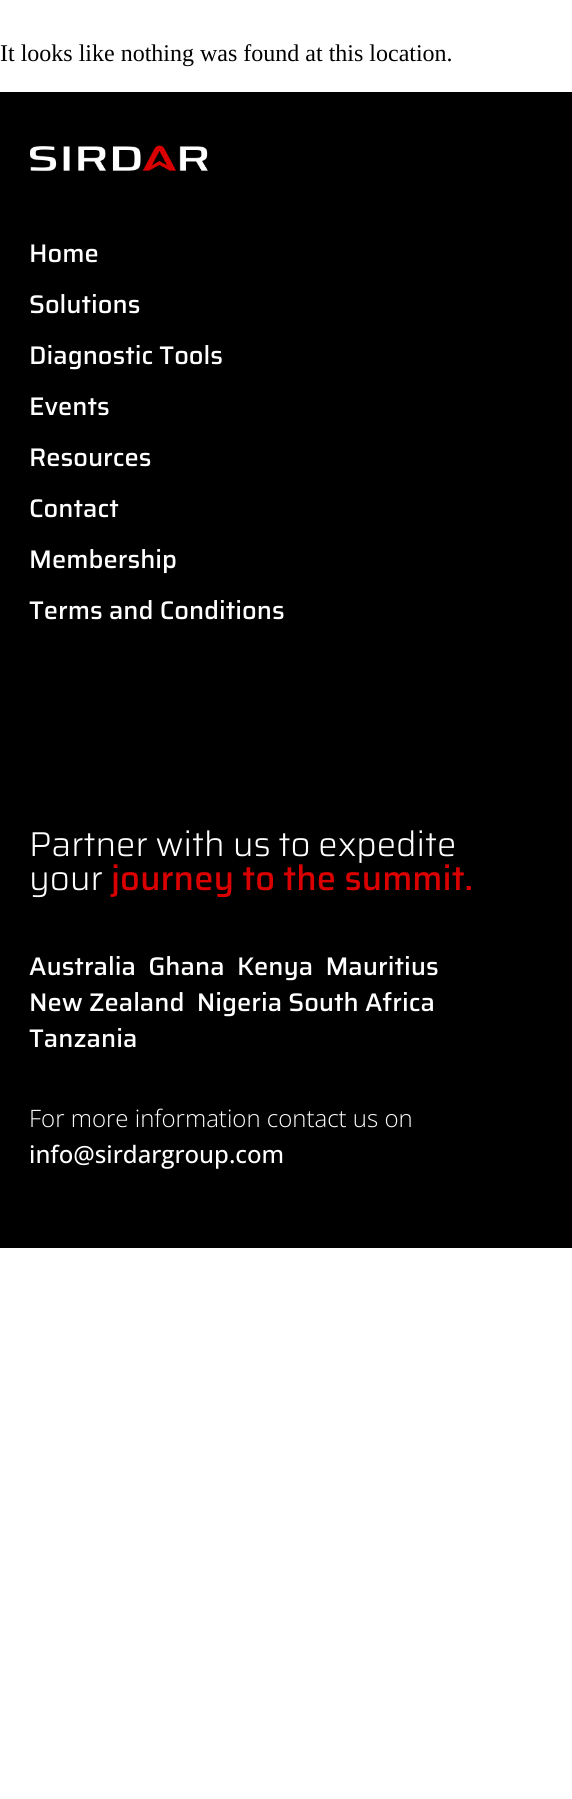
#include <cairo/cairo.h>
#include <math.h>
#include <stddef.h>


static void draw_image(cairo_t *cr, const char *path, double x, double y, double w, double h) {
  cairo_surface_t *image = cairo_image_surface_create_from_png(path);
  cairo_save(cr);
  cairo_set_source_surface(cr, image, x, y);
  cairo_rectangle(cr, x, y, w, h);
  cairo_fill(cr);
  cairo_restore(cr);
  cairo_surface_destroy(image);
}

static void draw(cairo_t *cr) {
  cairo_set_source_rgb(cr, 1, 1, 1);
  cairo_paint(cr);
  cairo_set_source_rgb(cr, 0, 0, 0);
  cairo_rectangle(cr, 0, 92, 572, 1156);
  cairo_fill(cr);
  draw_image(cr, "images/1.png", 30, 145, 178, 27);
  cairo_select_font_face(cr, "Liberation Serif", CAIRO_FONT_SLANT_NORMAL, CAIRO_FONT_WEIGHT_NORMAL);
  cairo_set_font_size(cr, 24);
  cairo_move_to(cr, 0, 61);
  cairo_show_text(cr, "It looks like nothing was found at this location.");
  cairo_select_font_face(cr, "Saira Medium", CAIRO_FONT_SLANT_NORMAL, CAIRO_FONT_WEIGHT_NORMAL);
  cairo_set_font_size(cr, 25.5);
  cairo_set_source_rgb(cr, 1, 1, 1);
  cairo_move_to(cr, 29, 262);
  cairo_show_text(cr, "Home");
  cairo_move_to(cr, 29, 313);
  cairo_show_text(cr, "Solutions");
  cairo_move_to(cr, 29, 364);
  cairo_show_text(cr, "Diagnostic Tools");
  cairo_move_to(cr, 29, 415);
  cairo_show_text(cr, "Events");
  cairo_move_to(cr, 29, 466);
  cairo_show_text(cr, "Resources");
  cairo_move_to(cr, 29, 517);
  cairo_show_text(cr, "Contact");
  cairo_move_to(cr, 29, 568);
  cairo_show_text(cr, "Membership");
  cairo_move_to(cr, 29, 619);
  cairo_show_text(cr, "Terms and Conditions");
  cairo_select_font_face(cr, "Saira Light", CAIRO_FONT_SLANT_NORMAL, CAIRO_FONT_WEIGHT_NORMAL);
  cairo_set_font_size(cr, 34.5);
  cairo_move_to(cr, 29, 856);
  cairo_show_text(cr, "Partner with us to expedite");
  cairo_move_to(cr, 29, 890);
  cairo_show_text(cr, "your");
  cairo_select_font_face(cr, "Saira Medium", CAIRO_FONT_SLANT_NORMAL, CAIRO_FONT_WEIGHT_NORMAL);
  cairo_set_source_rgb(cr, 218 / 255.0, 0, 0);
  cairo_move_to(cr, 111, 890);
  cairo_show_text(cr, "journey to the summit.");
  cairo_set_font_size(cr, 25.5);
  cairo_set_source_rgb(cr, 1, 1, 1);
  cairo_move_to(cr, 29, 975);
  cairo_show_text(cr, "Australia  Ghana  Kenya  Mauritius");
  cairo_move_to(cr, 29, 1011);
  cairo_show_text(cr, "New Zealand  Nigeria South Africa");
  cairo_move_to(cr, 29, 1047);
  cairo_show_text(cr, "Tanzania");
  cairo_select_font_face(cr, "Open Sans Light", CAIRO_FONT_SLANT_NORMAL, CAIRO_FONT_WEIGHT_NORMAL);
  cairo_set_font_size(cr, 24);
  cairo_move_to(cr, 29, 1127);
  cairo_show_text(cr, "For more information contact us on");
  cairo_select_font_face(cr, "Open Sans Medium", CAIRO_FONT_SLANT_NORMAL, CAIRO_FONT_WEIGHT_NORMAL);
  cairo_move_to(cr, 29, 1163);
  cairo_show_text(cr, "info@sirdargroup.com");
}

int main(void) {
  cairo_surface_t *surface = cairo_image_surface_create(CAIRO_FORMAT_RGB24, 572, 1799);
  cairo_t *cr = cairo_create(surface);
  cairo_font_options_t *options = cairo_font_options_create();
  cairo_font_options_set_hint_metrics(options, CAIRO_HINT_METRICS_OFF);
  cairo_font_options_set_hint_style(options, CAIRO_HINT_STYLE_NONE);
  cairo_set_font_options(cr, options);
  cairo_set_miter_limit(cr, 4);
  draw(cr);
  cairo_surface_write_to_png(surface, "out.png");
  cairo_font_options_destroy(options);
  cairo_destroy(cr);
  cairo_surface_destroy(surface);
  return 0;
}
